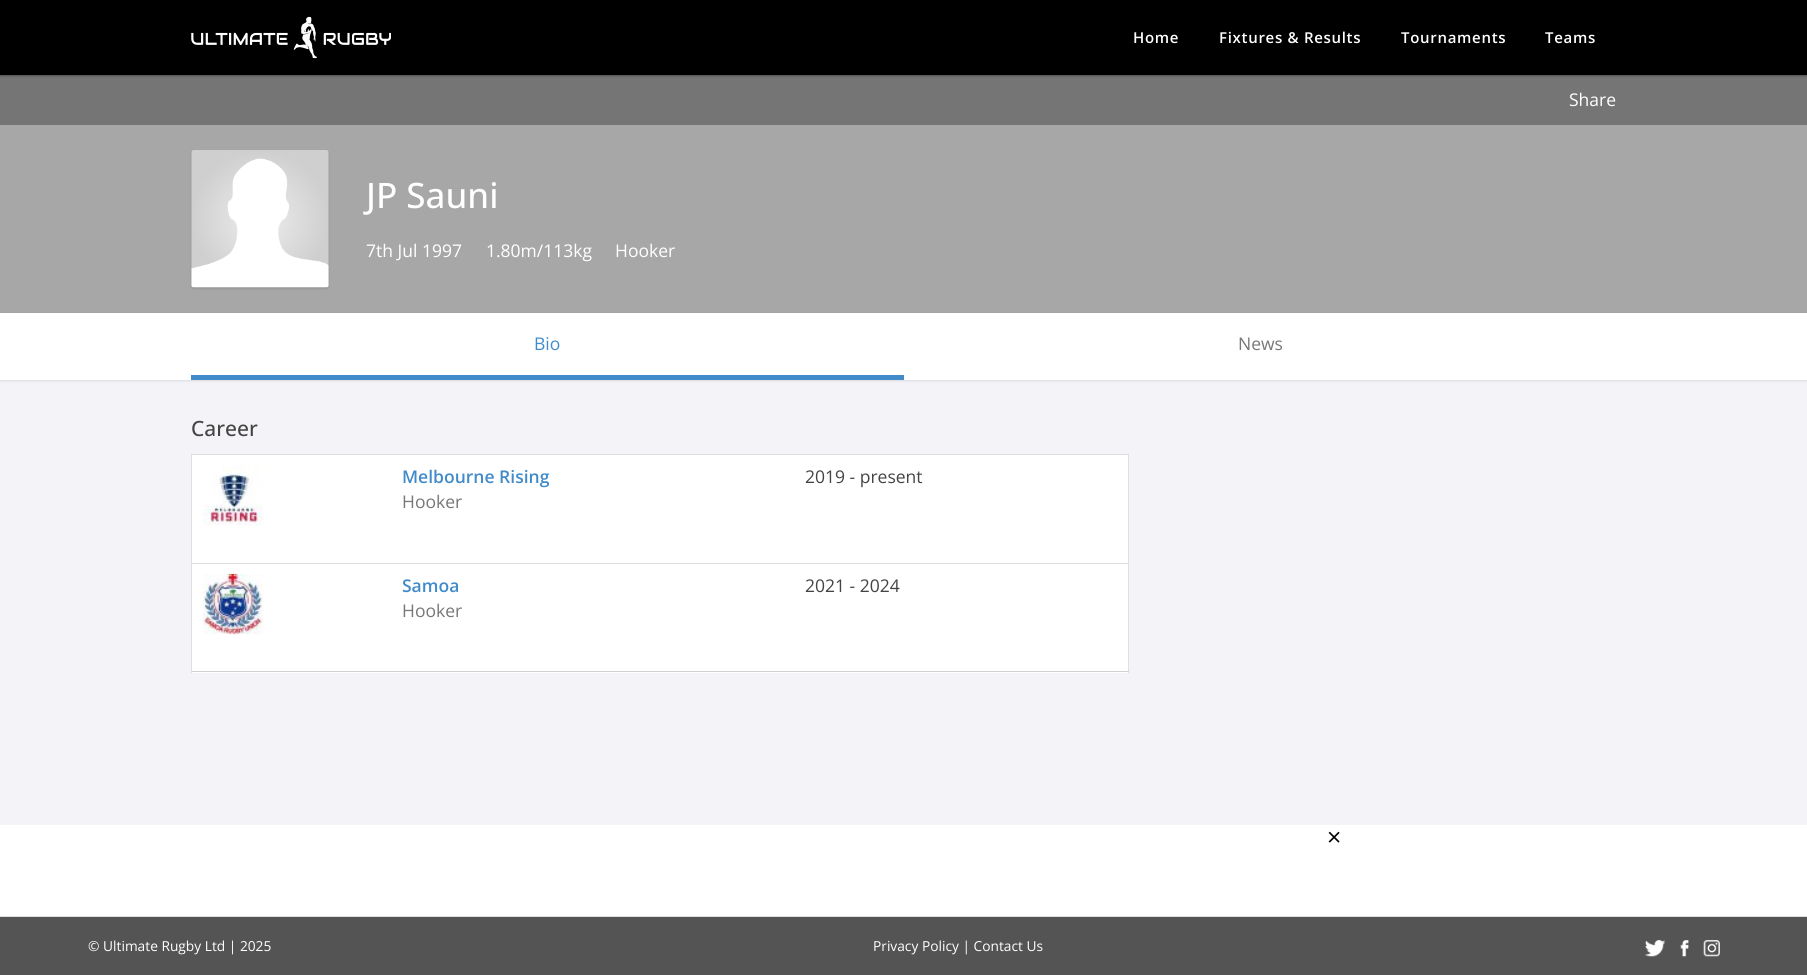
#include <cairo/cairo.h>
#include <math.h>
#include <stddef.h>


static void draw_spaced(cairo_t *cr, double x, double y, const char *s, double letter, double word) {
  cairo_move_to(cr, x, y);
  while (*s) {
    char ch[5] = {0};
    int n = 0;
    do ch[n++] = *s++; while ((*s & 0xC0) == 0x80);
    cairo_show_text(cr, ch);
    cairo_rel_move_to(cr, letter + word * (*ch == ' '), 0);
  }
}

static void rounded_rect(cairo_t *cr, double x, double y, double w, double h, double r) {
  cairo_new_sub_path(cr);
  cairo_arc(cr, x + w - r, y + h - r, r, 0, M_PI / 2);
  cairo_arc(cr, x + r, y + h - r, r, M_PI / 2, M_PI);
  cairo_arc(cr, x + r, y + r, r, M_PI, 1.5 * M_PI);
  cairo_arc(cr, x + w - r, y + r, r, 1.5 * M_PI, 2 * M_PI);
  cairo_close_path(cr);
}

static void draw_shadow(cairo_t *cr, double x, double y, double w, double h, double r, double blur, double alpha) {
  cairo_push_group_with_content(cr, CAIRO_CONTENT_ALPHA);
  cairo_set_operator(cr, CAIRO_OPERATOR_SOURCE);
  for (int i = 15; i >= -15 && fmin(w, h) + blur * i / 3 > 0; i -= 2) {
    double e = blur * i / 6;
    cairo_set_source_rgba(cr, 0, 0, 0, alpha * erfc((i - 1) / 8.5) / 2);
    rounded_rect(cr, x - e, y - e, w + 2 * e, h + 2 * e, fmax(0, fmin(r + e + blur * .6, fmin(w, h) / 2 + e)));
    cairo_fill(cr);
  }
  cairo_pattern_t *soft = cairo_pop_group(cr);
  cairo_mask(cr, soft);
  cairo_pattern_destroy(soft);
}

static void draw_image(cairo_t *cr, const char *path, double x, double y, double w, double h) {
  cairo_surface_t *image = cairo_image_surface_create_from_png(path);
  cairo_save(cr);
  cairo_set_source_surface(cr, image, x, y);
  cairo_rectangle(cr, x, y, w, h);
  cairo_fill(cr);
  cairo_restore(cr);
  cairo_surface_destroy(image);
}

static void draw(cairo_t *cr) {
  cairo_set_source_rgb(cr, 1, 1, 1);
  cairo_paint(cr);
  cairo_set_source_rgb(cr, 117 / 255.0, 117 / 255.0, 117 / 255.0);
  cairo_rectangle(cr, 0, 75, 1807, 50);
  cairo_fill(cr);
  cairo_set_source_rgb(cr, 0, 0, 0);
  draw_shadow(cr, 0, 1, 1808, 75, 0, 1, 0.3);
  cairo_set_source_rgb(cr, 0, 0, 0);
  cairo_rectangle(cr, 0, 0, 1807, 75);
  cairo_fill(cr);
  draw_image(cr, "images/1.png", 191, 16, 200, 43);
  cairo_set_source_rgb(cr, 243 / 255.0, 243 / 255.0, 248 / 255.0);
  cairo_rectangle(cr, 0, 380, 1807, 445);
  cairo_fill(cr);
  cairo_set_source_rgb(cr, 167 / 255.0, 167 / 255.0, 167 / 255.0);
  cairo_rectangle(cr, 0, 125, 1807, 188);
  cairo_fill(cr);
  cairo_set_source_rgb(cr, 0, 0, 0);
  draw_shadow(cr, 191, 151, 138, 138, 2.5, 1, 0.1);
  draw_image(cr, "images/2.png", 191, 150, 138, 138);
  draw_shadow(cr, 0, 314, 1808, 67, 0, 1, 0.1);
  cairo_set_source_rgb(cr, 1, 1, 1);
  cairo_rectangle(cr, 0, 313, 1807, 67);
  cairo_fill(cr);
  cairo_set_source_rgb(cr, 66 / 255.0, 139 / 255.0, 202 / 255.0);
  cairo_rectangle(cr, 191, 375, 713, 5);
  cairo_fill(cr);
  cairo_set_source_rgb(cr, 1, 1, 1);
  cairo_rectangle(cr, 192, 455, 936, 218);
  cairo_fill(cr);
  cairo_set_source_rgb(cr, 223 / 255.0, 224 / 255.0, 228 / 255.0);
  cairo_rectangle(cr, 1128, 454, 1, 219);
  cairo_fill(cr);
  cairo_set_source_rgb(cr, 208 / 255.0, 209 / 255.0, 213 / 255.0);
  cairo_rectangle(cr, 191, 671, 938, 1);
  cairo_fill(cr);
  cairo_set_source_rgb(cr, 223 / 255.0, 224 / 255.0, 228 / 255.0);
  cairo_rectangle(cr, 191, 454, 1, 219);
  cairo_fill(cr);
  draw_image(cr, "images/3.png", 202, 465, 61, 61);
  cairo_set_source_rgb(cr, 221 / 255.0, 221 / 255.0, 221 / 255.0);
  cairo_rectangle(cr, 191, 454, 938, 1);
  cairo_fill(cr);
  draw_image(cr, "images/4.png", 202, 573, 62, 62);
  cairo_rectangle(cr, 191, 563, 938, 1);
  cairo_fill(cr);
  cairo_set_source_rgb(cr, 84 / 255.0, 84 / 255.0, 84 / 255.0);
  cairo_rectangle(cr, 0, 917, 1807, 58);
  cairo_fill(cr);
  cairo_set_source_rgb(cr, 221 / 255.0, 221 / 255.0, 221 / 255.0);
  cairo_rectangle(cr, 0, 916, 1807, 1);
  cairo_fill(cr);
  draw_image(cr, "images/5.png", 1645, 940, 20, 17);
  draw_image(cr, "images/6.png", 1680, 940, 9, 17);
  draw_image(cr, "images/7.png", 1703, 940, 17, 17);
  cairo_select_font_face(cr, "Open Sans SemiBold", CAIRO_FONT_SLANT_NORMAL, CAIRO_FONT_WEIGHT_NORMAL);
  cairo_set_font_size(cr, 15);
  cairo_set_source_rgb(cr, 1, 1, 1);
  draw_spaced(cr, 1133, 43, "Home", 0.7, 0);
  draw_spaced(cr, 1219, 43, "Fixtures & Results", 0.7, 0);
  draw_spaced(cr, 1401, 43, "Tournaments", 0.7, 0);
  draw_spaced(cr, 1545, 43, "Teams", 0.7, 0);
  cairo_select_font_face(cr, "Open Sans", CAIRO_FONT_SLANT_NORMAL, CAIRO_FONT_WEIGHT_NORMAL);
  cairo_set_font_size(cr, 17.5);
  cairo_move_to(cr, 1569, 106);
  cairo_show_text(cr, "Share");
  cairo_select_font_face(cr, "Open Sans Medium", CAIRO_FONT_SLANT_NORMAL, CAIRO_FONT_WEIGHT_NORMAL);
  cairo_set_font_size(cr, 35);
  cairo_move_to(cr, 366, 208);
  cairo_show_text(cr, "JP Sauni");
  cairo_select_font_face(cr, "Open Sans", CAIRO_FONT_SLANT_NORMAL, CAIRO_FONT_WEIGHT_NORMAL);
  cairo_set_font_size(cr, 17.5);
  cairo_move_to(cr, 366, 257);
  cairo_show_text(cr, "7th Jul 1997");
  cairo_move_to(cr, 486, 257);
  cairo_show_text(cr, "1.80m/113kg");
  cairo_move_to(cr, 615, 257);
  cairo_show_text(cr, "Hooker");
  cairo_set_source_rgb(cr, 66 / 255.0, 139 / 255.0, 202 / 255.0);
  cairo_move_to(cr, 534, 350);
  cairo_show_text(cr, "Bio");
  cairo_set_source_rgb(cr, 119 / 255.0, 119 / 255.0, 119 / 255.0);
  cairo_move_to(cr, 1238, 350);
  cairo_show_text(cr, "News");
  cairo_select_font_face(cr, "Open Sans Medium", CAIRO_FONT_SLANT_NORMAL, CAIRO_FONT_WEIGHT_NORMAL);
  cairo_set_font_size(cr, 21);
  cairo_set_source_rgb(cr, 68 / 255.0, 68 / 255.0, 68 / 255.0);
  cairo_move_to(cr, 191, 436);
  cairo_show_text(cr, "Career");
  cairo_select_font_face(cr, "Open Sans SemiBold", CAIRO_FONT_SLANT_NORMAL, CAIRO_FONT_WEIGHT_NORMAL);
  cairo_set_font_size(cr, 17.5);
  cairo_set_source_rgb(cr, 66 / 255.0, 139 / 255.0, 202 / 255.0);
  cairo_move_to(cr, 402, 483);
  cairo_show_text(cr, "Melbourne Rising");
  cairo_select_font_face(cr, "Open Sans", CAIRO_FONT_SLANT_NORMAL, CAIRO_FONT_WEIGHT_NORMAL);
  cairo_set_source_rgb(cr, 119 / 255.0, 119 / 255.0, 119 / 255.0);
  cairo_move_to(cr, 402, 508);
  cairo_show_text(cr, "Hooker");
  cairo_set_source_rgb(cr, 68 / 255.0, 68 / 255.0, 68 / 255.0);
  cairo_move_to(cr, 805, 483);
  cairo_show_text(cr, "2019 - present");
  cairo_select_font_face(cr, "Open Sans SemiBold", CAIRO_FONT_SLANT_NORMAL, CAIRO_FONT_WEIGHT_NORMAL);
  cairo_set_source_rgb(cr, 66 / 255.0, 139 / 255.0, 202 / 255.0);
  cairo_move_to(cr, 402, 592);
  cairo_show_text(cr, "Samoa");
  cairo_select_font_face(cr, "Open Sans", CAIRO_FONT_SLANT_NORMAL, CAIRO_FONT_WEIGHT_NORMAL);
  cairo_set_source_rgb(cr, 119 / 255.0, 119 / 255.0, 119 / 255.0);
  cairo_move_to(cr, 402, 617);
  cairo_show_text(cr, "Hooker");
  cairo_set_source_rgb(cr, 68 / 255.0, 68 / 255.0, 68 / 255.0);
  cairo_move_to(cr, 805, 592);
  cairo_show_text(cr, "2021 - 2024");
  cairo_set_font_size(cr, 25);
  cairo_set_source_rgb(cr, 0, 0, 0);
  cairo_move_to(cr, 1327, 846);
  cairo_show_text(cr, "×");
  cairo_set_font_size(cr, 13.75);
  cairo_set_source_rgb(cr, 1, 1, 1);
  cairo_move_to(cr, 88, 951);
  cairo_show_text(cr, "© Ultimate Rugby Ltd | 2025");
  cairo_move_to(cr, 873, 951);
  cairo_show_text(cr, "Privacy Policy | Contact Us");
}

int main(void) {
  cairo_surface_t *surface = cairo_image_surface_create(CAIRO_FORMAT_RGB24, 1807, 975);
  cairo_t *cr = cairo_create(surface);
  cairo_font_options_t *options = cairo_font_options_create();
  cairo_font_options_set_hint_metrics(options, CAIRO_HINT_METRICS_OFF);
  cairo_font_options_set_hint_style(options, CAIRO_HINT_STYLE_NONE);
  cairo_set_font_options(cr, options);
  cairo_set_miter_limit(cr, 4);
  draw(cr);
  cairo_surface_write_to_png(surface, "out.png");
  cairo_font_options_destroy(options);
  cairo_destroy(cr);
  cairo_surface_destroy(surface);
  return 0;
}
